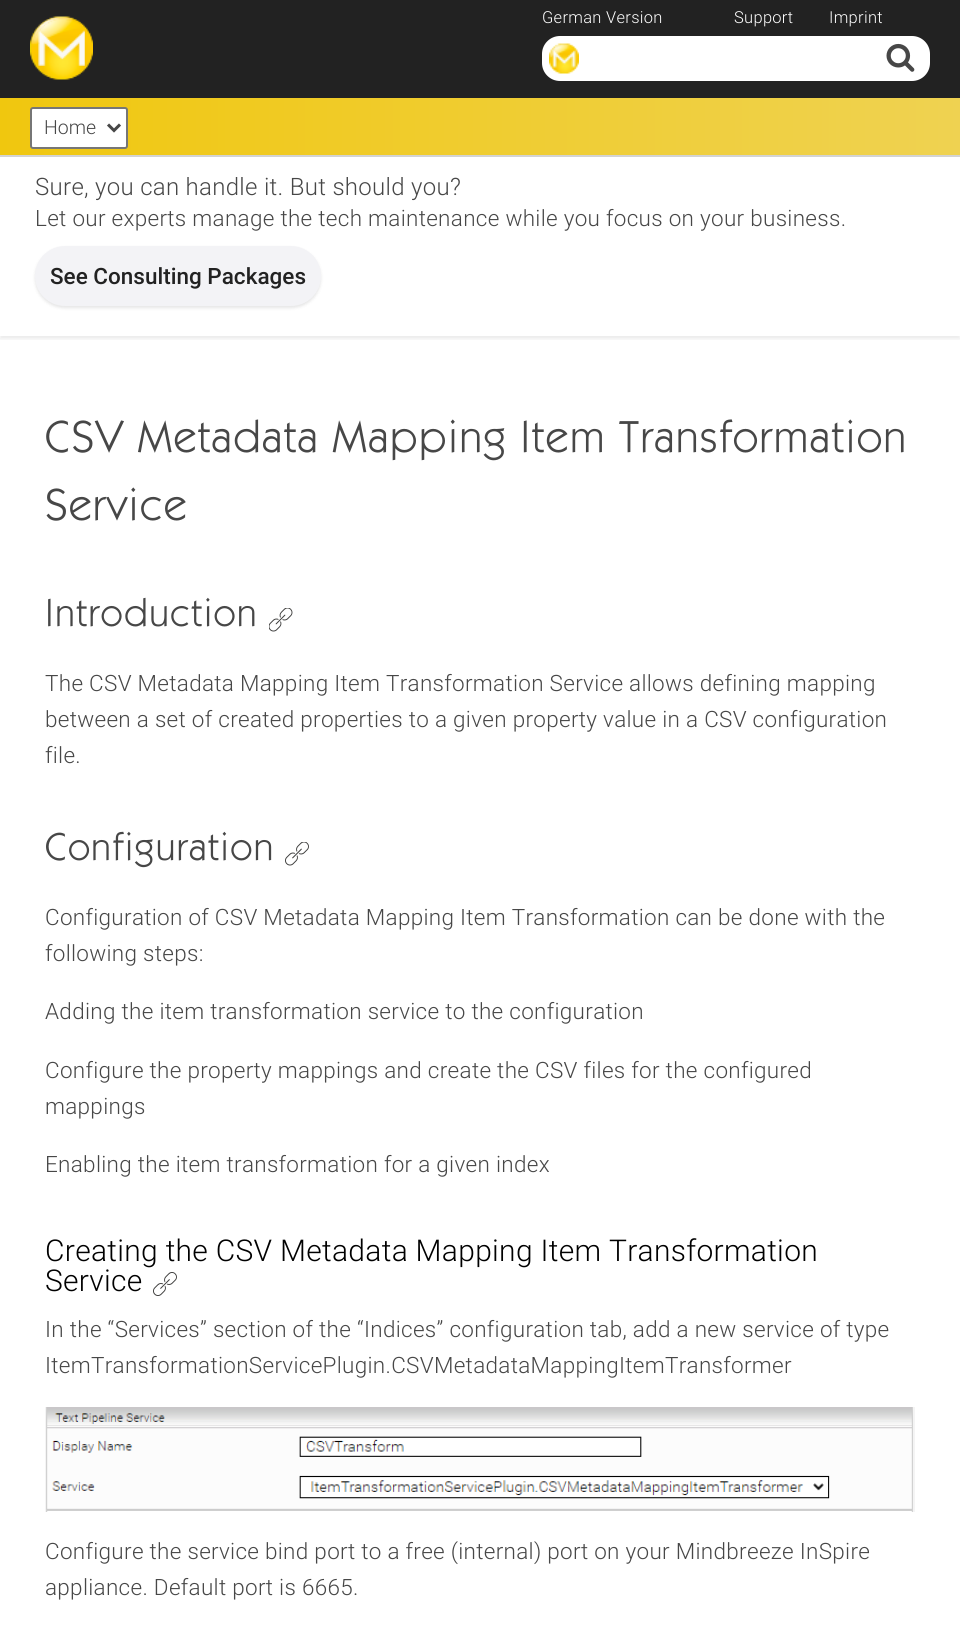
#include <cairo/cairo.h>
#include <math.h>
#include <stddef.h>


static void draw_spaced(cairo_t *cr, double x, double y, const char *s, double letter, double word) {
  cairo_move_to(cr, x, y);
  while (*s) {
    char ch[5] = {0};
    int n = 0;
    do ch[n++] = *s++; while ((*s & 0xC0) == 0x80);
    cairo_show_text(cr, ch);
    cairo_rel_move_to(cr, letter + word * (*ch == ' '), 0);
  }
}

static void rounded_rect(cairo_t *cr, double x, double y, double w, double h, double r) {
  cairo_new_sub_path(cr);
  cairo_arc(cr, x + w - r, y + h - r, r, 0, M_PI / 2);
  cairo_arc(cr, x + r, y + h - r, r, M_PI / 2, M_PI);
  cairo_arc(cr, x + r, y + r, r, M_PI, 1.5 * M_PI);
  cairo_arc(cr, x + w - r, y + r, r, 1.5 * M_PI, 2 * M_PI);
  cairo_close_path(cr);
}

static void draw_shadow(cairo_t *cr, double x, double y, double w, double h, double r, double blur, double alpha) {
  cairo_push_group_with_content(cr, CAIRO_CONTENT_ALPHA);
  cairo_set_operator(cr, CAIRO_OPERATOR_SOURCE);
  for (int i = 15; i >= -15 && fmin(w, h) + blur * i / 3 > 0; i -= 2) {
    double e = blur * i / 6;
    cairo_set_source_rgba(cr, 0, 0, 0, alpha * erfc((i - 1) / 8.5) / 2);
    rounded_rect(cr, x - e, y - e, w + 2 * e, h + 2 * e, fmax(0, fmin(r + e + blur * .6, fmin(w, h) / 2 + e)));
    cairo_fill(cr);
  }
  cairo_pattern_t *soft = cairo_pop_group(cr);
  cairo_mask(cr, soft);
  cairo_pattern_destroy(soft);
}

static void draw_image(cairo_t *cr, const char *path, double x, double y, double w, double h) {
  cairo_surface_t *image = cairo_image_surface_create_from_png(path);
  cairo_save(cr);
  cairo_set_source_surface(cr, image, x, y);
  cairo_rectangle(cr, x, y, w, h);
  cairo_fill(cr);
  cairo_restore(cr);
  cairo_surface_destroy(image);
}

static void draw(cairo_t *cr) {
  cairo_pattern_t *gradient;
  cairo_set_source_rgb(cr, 1, 1, 1);
  cairo_paint(cr);
  cairo_set_source_rgb(cr, 34 / 255.0, 34 / 255.0, 34 / 255.0);
  cairo_rectangle(cr, 0, 0, 960, 98);
  cairo_fill(cr);
  draw_image(cr, "images/1.png", 30, 16, 63, 64);
  cairo_set_source_rgb(cr, 1, 1, 1);
  rounded_rect(cr, 542, 36, 388, 45, 18);
  cairo_fill(cr);
  draw_image(cr, "images/2.png", 549, 43, 30, 31);
  draw_image(cr, "images/3.png", 886, 43, 29, 29);
  gradient = cairo_pattern_create_linear(0, 126, 960, 126);
  cairo_pattern_add_color_stop_rgba(gradient, 0, 240 / 255.0, 199 / 255.0, 15 / 255.0, 1);
  cairo_pattern_add_color_stop_rgba(gradient, 1, 239 / 255.0, 210 / 255.0, 81 / 255.0, 1);
  cairo_set_source(cr, gradient);
  cairo_pattern_destroy(gradient);
  cairo_rectangle(cr, 0, 98, 960, 57);
  cairo_fill(cr);
  cairo_set_source_rgb(cr, 211 / 255.0, 211 / 255.0, 211 / 255.0);
  cairo_rectangle(cr, 0, 155, 960, 2);
  cairo_fill(cr);
  cairo_set_source_rgb(cr, 1, 1, 1);
  rounded_rect(cr, 31, 108, 96, 40, 2);
  cairo_fill_preserve(cr);
  cairo_set_source_rgb(cr, 118 / 255.0, 118 / 255.0, 118 / 255.0);
  cairo_stroke(cr);
  cairo_new_path(cr);
  cairo_move_to(cr, 108, 124.5);
  cairo_line_to(cr, 114, 130.5);
  cairo_line_to(cr, 120, 124.5);
  cairo_set_source_rgb(cr, 71 / 255.0, 71 / 255.0, 71 / 255.0);
  cairo_set_line_width(cr, 3);
  cairo_stroke(cr);
  cairo_save(cr);
  cairo_rectangle(cr, 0, 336, 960, 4);
  cairo_clip(cr);
  cairo_set_source_rgb(cr, 0, 0, 0);
  draw_shadow(cr, 0, 159, 960, 180, 0, 2, 0.08);
  cairo_restore(cr);
  cairo_set_source_rgb(cr, 0, 0, 0);
  draw_shadow(cr, 35, 248, 286, 60, 30, 1.5, 0.1);
  cairo_set_source_rgb(cr, 243 / 255.0, 243 / 255.0, 246 / 255.0);
  rounded_rect(cr, 35, 246, 286, 60, 30);
  cairo_fill(cr);
  draw_image(cr, "images/4.png", 269, 608, 24, 24);
  draw_image(cr, "images/5.png", 285, 842, 24, 24);
  draw_image(cr, "images/6.png", 153, 1272, 24, 24);
  draw_image(cr, "images/7.png", 45, 1407, 870, 105);
  cairo_select_font_face(cr, "Roboto Light", CAIRO_FONT_SLANT_NORMAL, CAIRO_FONT_WEIGHT_NORMAL);
  cairo_set_font_size(cr, 16.5);
  cairo_set_source_rgb(cr, 1, 1, 1);
  draw_spaced(cr, 542, 23, "German Version", 0.3, 0);
  draw_spaced(cr, 734, 23, "Support", 0.3, 0);
  draw_spaced(cr, 829, 23, "Imprint", 0.3, 0);
  cairo_set_font_size(cr, 19.5);
  cairo_set_source_rgb(cr, 71 / 255.0, 71 / 255.0, 71 / 255.0);
  cairo_move_to(cr, 44, 134);
  cairo_show_text(cr, "Home");
  cairo_set_font_size(cr, 24);
  draw_spaced(cr, 35, 195, "Sure, you can handle it. But should you?", 0.3, 0);
  cairo_set_font_size(cr, 22.5);
  draw_spaced(cr, 35, 226, "Let our experts manage the tech maintenance while you focus on your business.", 0.3, 0);
  cairo_select_font_face(cr, "Roboto Medium", CAIRO_FONT_SLANT_NORMAL, CAIRO_FONT_WEIGHT_NORMAL);
  cairo_set_source_rgb(cr, 34 / 255.0, 34 / 255.0, 34 / 255.0);
  cairo_move_to(cr, 50, 284);
  cairo_show_text(cr, "See Consulting Packages");
  cairo_select_font_face(cr, "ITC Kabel", CAIRO_FONT_SLANT_NORMAL, CAIRO_FONT_WEIGHT_NORMAL);
  cairo_set_font_size(cr, 45);
  cairo_set_source_rgb(cr, 71 / 255.0, 71 / 255.0, 71 / 255.0);
  draw_spaced(cr, 45, 452, "CSV Metadata Mapping Item Transformation", 1.5, 0);
  draw_spaced(cr, 45, 520, "Service", 1.5, 0);
  cairo_set_font_size(cr, 39);
  draw_spaced(cr, 45, 626, "Introduction", 1.5, 0);
  cairo_select_font_face(cr, "Roboto Light", CAIRO_FONT_SLANT_NORMAL, CAIRO_FONT_WEIGHT_NORMAL);
  cairo_set_font_size(cr, 22.5);
  draw_spaced(cr, 45, 691, "The CSV Metadata Mapping Item Transformation Service allows defining mapping", 0.3, 0);
  draw_spaced(cr, 45, 727, "between a set of created properties to a given property value in a CSV configuration", 0.3, 0);
  draw_spaced(cr, 45, 763, "file.", 0.3, 0);
  cairo_select_font_face(cr, "ITC Kabel", CAIRO_FONT_SLANT_NORMAL, CAIRO_FONT_WEIGHT_NORMAL);
  cairo_set_font_size(cr, 39);
  draw_spaced(cr, 45, 860, "Configuration", 1.5, 0);
  cairo_select_font_face(cr, "Roboto Light", CAIRO_FONT_SLANT_NORMAL, CAIRO_FONT_WEIGHT_NORMAL);
  cairo_set_font_size(cr, 22.5);
  draw_spaced(cr, 45, 925, "Configuration of CSV Metadata Mapping Item Transformation can be done with the", 0.3, 0);
  draw_spaced(cr, 45, 961, "following steps:", 0.3, 0);
  draw_spaced(cr, 45, 1019, "Adding the item transformation service to the configuration", 0.3, 0);
  draw_spaced(cr, 45, 1078, "Configure the property mappings and create the CSV files for the configured", 0.3, 0);
  draw_spaced(cr, 45, 1114, "mappings", 0.3, 0);
  draw_spaced(cr, 45, 1172, "Enabling the item transformation for a given index", 0.3, 0);
  cairo_set_font_size(cr, 30);
  cairo_set_source_rgb(cr, 0, 0, 0);
  draw_spaced(cr, 45, 1261, "Creating the CSV Metadata Mapping Item Transformation", 0.3, 0);
  draw_spaced(cr, 45, 1291, "Service", 0.3, 0);
  cairo_set_font_size(cr, 22.5);
  cairo_set_source_rgb(cr, 71 / 255.0, 71 / 255.0, 71 / 255.0);
  draw_spaced(cr, 45, 1337, "In the “Services” section of the “Indices” configuration tab, add a new service of type", 0.3, 0);
  draw_spaced(cr, 45, 1373, "ItemTransformationServicePlugin.CSVMetadataMappingItemTransformer", 0.3, 0);
  draw_spaced(cr, 45, 1559, "Configure the service bind port to a free (internal) port on your Mindbreeze InSpire", 0.3, 0);
  draw_spaced(cr, 45, 1595, "appliance. Default port is 6665.", 0.3, 0);
}

int main(void) {
  cairo_surface_t *surface = cairo_image_surface_create(CAIRO_FORMAT_RGB24, 960, 1642);
  cairo_t *cr = cairo_create(surface);
  cairo_font_options_t *options = cairo_font_options_create();
  cairo_font_options_set_hint_metrics(options, CAIRO_HINT_METRICS_OFF);
  cairo_font_options_set_hint_style(options, CAIRO_HINT_STYLE_NONE);
  cairo_set_font_options(cr, options);
  cairo_set_miter_limit(cr, 4);
  draw(cr);
  cairo_surface_write_to_png(surface, "out.png");
  cairo_font_options_destroy(options);
  cairo_destroy(cr);
  cairo_surface_destroy(surface);
  return 0;
}
